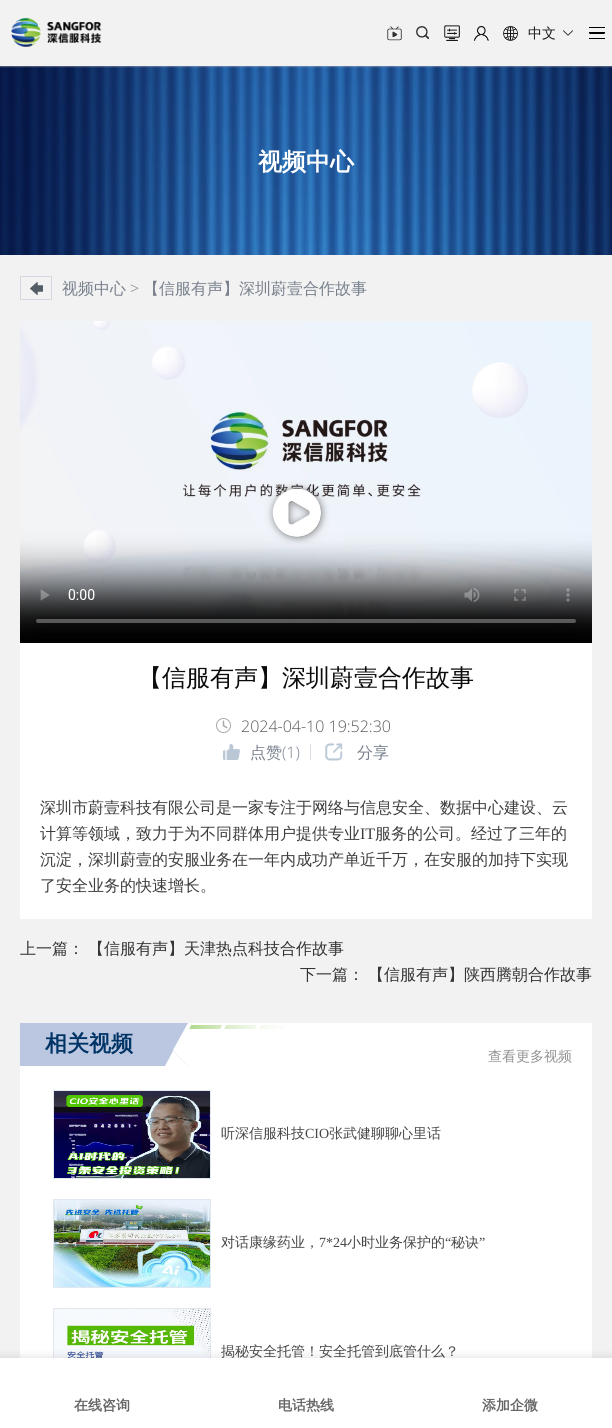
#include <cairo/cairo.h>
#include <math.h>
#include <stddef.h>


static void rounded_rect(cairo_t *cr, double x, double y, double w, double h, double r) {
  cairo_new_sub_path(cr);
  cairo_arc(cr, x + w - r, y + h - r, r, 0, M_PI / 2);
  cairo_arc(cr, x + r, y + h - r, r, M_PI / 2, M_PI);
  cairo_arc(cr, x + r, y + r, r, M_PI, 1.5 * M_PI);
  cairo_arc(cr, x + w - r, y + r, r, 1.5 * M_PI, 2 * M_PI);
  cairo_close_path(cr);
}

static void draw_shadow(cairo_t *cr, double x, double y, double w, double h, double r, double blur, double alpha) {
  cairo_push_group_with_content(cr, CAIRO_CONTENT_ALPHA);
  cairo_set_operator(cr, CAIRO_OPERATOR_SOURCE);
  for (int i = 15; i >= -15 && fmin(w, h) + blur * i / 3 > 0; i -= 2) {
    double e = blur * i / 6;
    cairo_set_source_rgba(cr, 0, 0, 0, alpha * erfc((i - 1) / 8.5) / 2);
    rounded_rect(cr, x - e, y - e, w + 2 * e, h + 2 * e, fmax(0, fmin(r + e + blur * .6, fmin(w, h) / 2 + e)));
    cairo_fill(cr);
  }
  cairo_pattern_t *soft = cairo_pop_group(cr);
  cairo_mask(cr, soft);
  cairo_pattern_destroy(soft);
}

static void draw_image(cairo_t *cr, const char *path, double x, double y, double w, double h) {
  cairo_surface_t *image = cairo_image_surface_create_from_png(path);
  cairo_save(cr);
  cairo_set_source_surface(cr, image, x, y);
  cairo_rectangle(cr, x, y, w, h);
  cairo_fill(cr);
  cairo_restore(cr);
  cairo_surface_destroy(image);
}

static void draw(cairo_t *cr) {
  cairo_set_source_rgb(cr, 242 / 255.0, 242 / 255.0, 242 / 255.0);
  cairo_paint(cr);
  draw_image(cr, "images/9.png", 0, 66, 612, 189);
  cairo_save(cr);
  cairo_rectangle(cr, 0, 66, 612, 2);
  cairo_clip(cr);
  cairo_set_source_rgb(cr, 196 / 255.0, 196 / 255.0, 196 / 255.0);
  draw_shadow(cr, 0, 1, 612, 66, 0, 0.5, 0.4);
  cairo_restore(cr);
  draw_image(cr, "images/1.png", 11, 17, 91, 30);
  draw_image(cr, "images/2.png", 387, 26, 15, 15);
  draw_image(cr, "images/3.png", 416, 26, 13, 13);
  draw_image(cr, "images/4.png", 444, 25, 16, 16);
  draw_image(cr, "images/5.png", 474, 26, 15, 15);
  draw_image(cr, "images/6.png", 503, 26, 15, 15);
  draw_image(cr, "images/7.png", 563, 30, 10, 6);
  draw_image(cr, "images/8.png", 589, 27, 16, 12);
  draw_image(cr, "images/10.png", 30, 282, 13, 13);
  cairo_rectangle(cr, 20.5, 276.5, 31, 23);
  cairo_set_source_rgb(cr, 211 / 255.0, 217 / 255.0, 224 / 255.0);
  cairo_set_line_width(cr, 1);
  cairo_stroke(cr);
  draw_image(cr, "images/11.png", 20, 321, 572, 322);
  cairo_set_source_rgb(cr, 1, 1, 1);
  cairo_rectangle(cr, 20, 643, 572, 276);
  cairo_fill(cr);
  draw_image(cr, "images/12.png", 216, 718, 15, 15);
  draw_image(cr, "images/13.png", 223, 744, 17, 16);
  cairo_set_source_rgb(cr, 220 / 255.0, 223 / 255.0, 230 / 255.0);
  cairo_rectangle(cr, 310, 744, 1, 16);
  cairo_fill(cr);
  draw_image(cr, "images/14.png", 325, 743, 18, 18);
  cairo_set_source_rgb(cr, 1, 1, 1);
  cairo_rectangle(cr, 20, 1023, 572, 335);
  cairo_fill(cr);
  cairo_set_source_rgb(cr, 187 / 255.0, 199 / 255.0, 224 / 255.0);
  cairo_rectangle(cr, 20, 1023, 168, 43);
  cairo_fill(cr);
  cairo_set_source_rgb(cr, 1, 1, 1);
  cairo_new_path(cr);
  cairo_move_to(cr, 188, 1023);
  cairo_line_to(cr, 188, 1066);
  cairo_line_to(cr, 173, 1051);
  cairo_line_to(cr, 173, 1050);
  cairo_close_path(cr);
  cairo_fill(cr);
  cairo_new_path(cr);
  cairo_move_to(cr, 188, 1066);
  cairo_line_to(cr, 165, 1066);
  cairo_line_to(cr, 173, 1051);
  cairo_close_path(cr);
  cairo_fill(cr);
  draw_image(cr, "images/15.png", 189, 1025, 95, 4);
  cairo_rectangle(cr, 53.5, 1090.5, 157, 88);
  cairo_set_source_rgb(cr, 226 / 255.0, 232 / 255.0, 240 / 255.0);
  cairo_stroke(cr);
  draw_image(cr, "images/16.png", 54, 1091, 156, 87);
  cairo_rectangle(cr, 53.5, 1199.5, 157, 88);
  cairo_stroke(cr);
  draw_image(cr, "images/17.png", 54, 1200, 156, 87);
  cairo_rectangle(cr, 53.5, 1308.5, 157, 88);
  cairo_stroke(cr);
  draw_image(cr, "images/18.png", 54, 1309, 156, 49);
  cairo_set_source_rgb(cr, 0, 0, 0);
  draw_shadow(cr, 0, 1356, 612, 70, 0, 4, 0.1);
  cairo_set_source_rgb(cr, 1, 1, 1);
  cairo_rectangle(cr, 0, 1358, 612, 70);
  cairo_fill(cr);
  cairo_select_font_face(cr, "WenQuanYi Zen Hei Medium", CAIRO_FONT_SLANT_NORMAL, CAIRO_FONT_WEIGHT_NORMAL);
  cairo_set_font_size(cr, 14);
  cairo_set_source_rgb(cr, 24 / 255.0, 24 / 255.0, 24 / 255.0);
  cairo_move_to(cr, 528, 38);
  cairo_show_text(cr, "中文");
  cairo_select_font_face(cr, "WenQuanYi Zen Hei", CAIRO_FONT_SLANT_NORMAL, CAIRO_FONT_WEIGHT_BOLD);
  cairo_set_font_size(cr, 24);
  cairo_set_source_rgb(cr, 1, 1, 1);
  cairo_move_to(cr, 258, 170);
  cairo_show_text(cr, "视频中心");
  cairo_select_font_face(cr, "WenQuanYi Zen Hei Medium", CAIRO_FONT_SLANT_NORMAL, CAIRO_FONT_WEIGHT_NORMAL);
  cairo_set_font_size(cr, 16);
  cairo_set_source_rgb(cr, 119 / 255.0, 128 / 255.0, 140 / 255.0);
  cairo_move_to(cr, 62, 294);
  cairo_show_text(cr, "视频中心");
  cairo_select_font_face(cr, "Open Sans Light", CAIRO_FONT_SLANT_NORMAL, CAIRO_FONT_WEIGHT_NORMAL);
  cairo_move_to(cr, 130, 294);
  cairo_show_text(cr, ">");
  cairo_select_font_face(cr, "WenQuanYi Zen Hei Medium", CAIRO_FONT_SLANT_NORMAL, CAIRO_FONT_WEIGHT_NORMAL);
  cairo_move_to(cr, 143, 294);
  cairo_show_text(cr, "【信服有声】深圳蔚壹合作故事");
  cairo_set_font_size(cr, 24);
  cairo_set_source_rgb(cr, 11 / 255.0, 11 / 255.0, 11 / 255.0);
  cairo_move_to(cr, 138, 686);
  cairo_show_text(cr, "【信服有声】深圳蔚壹合作故事");
  cairo_select_font_face(cr, "Open Sans Light", CAIRO_FONT_SLANT_NORMAL, CAIRO_FONT_WEIGHT_NORMAL);
  cairo_set_font_size(cr, 16);
  cairo_set_source_rgb(cr, 89 / 255.0, 89 / 255.0, 89 / 255.0);
  cairo_move_to(cr, 241, 732);
  cairo_show_text(cr, "2024-04-10 19:52:30");
  cairo_select_font_face(cr, "WenQuanYi Zen Hei Medium", CAIRO_FONT_SLANT_NORMAL, CAIRO_FONT_WEIGHT_NORMAL);
  cairo_set_source_rgb(cr, 119 / 255.0, 128 / 255.0, 140 / 255.0);
  cairo_move_to(cr, 250, 758);
  cairo_show_text(cr, "点赞");
  cairo_select_font_face(cr, "Open Sans Light", CAIRO_FONT_SLANT_NORMAL, CAIRO_FONT_WEIGHT_NORMAL);
  cairo_move_to(cr, 282, 758);
  cairo_show_text(cr, "(1)");
  cairo_select_font_face(cr, "WenQuanYi Zen Hei Medium", CAIRO_FONT_SLANT_NORMAL, CAIRO_FONT_WEIGHT_NORMAL);
  cairo_move_to(cr, 357, 758);
  cairo_show_text(cr, "分享");
  cairo_set_source_rgb(cr, 61 / 255.0, 61 / 255.0, 61 / 255.0);
  cairo_move_to(cr, 40, 813);
  cairo_show_text(cr, "深圳市蔚壹科技有限公司是一家专注于网络与信息安全、数据中心建设、云");
  cairo_move_to(cr, 40, 839);
  cairo_show_text(cr, "计算等领域，致力于为不同群体用户提供专业");
  cairo_select_font_face(cr, "Liberation Serif", CAIRO_FONT_SLANT_NORMAL, CAIRO_FONT_WEIGHT_NORMAL);
  cairo_move_to(cr, 360, 839);
  cairo_show_text(cr, "IT");
  cairo_select_font_face(cr, "WenQuanYi Zen Hei Medium", CAIRO_FONT_SLANT_NORMAL, CAIRO_FONT_WEIGHT_NORMAL);
  cairo_move_to(cr, 375, 839);
  cairo_show_text(cr, "服务的公司。经过了三年的");
  cairo_move_to(cr, 40, 865);
  cairo_show_text(cr, "沉淀，深圳蔚壹的安服业务在一年内成功产单近千万，在安服的加持下实现");
  cairo_move_to(cr, 40, 891);
  cairo_show_text(cr, "了安全业务的快速增长。");
  cairo_set_source_rgb(cr, 51 / 255.0, 51 / 255.0, 51 / 255.0);
  cairo_move_to(cr, 20, 954);
  cairo_show_text(cr, "上一篇：");
  cairo_move_to(cr, 88, 954);
  cairo_show_text(cr, "【信服有声】天津热点科技合作故事");
  cairo_move_to(cr, 300, 980);
  cairo_show_text(cr, "下一篇：");
  cairo_move_to(cr, 368, 980);
  cairo_show_text(cr, "【信服有声】陕西腾朝合作故事");
  cairo_select_font_face(cr, "WenQuanYi Zen Hei", CAIRO_FONT_SLANT_NORMAL, CAIRO_FONT_WEIGHT_BOLD);
  cairo_set_font_size(cr, 22);
  cairo_set_source_rgb(cr, 0, 52 / 255.0, 102 / 255.0);
  cairo_move_to(cr, 45, 1051);
  cairo_show_text(cr, "相关视频");
  cairo_select_font_face(cr, "WenQuanYi Zen Hei Medium", CAIRO_FONT_SLANT_NORMAL, CAIRO_FONT_WEIGHT_NORMAL);
  cairo_set_font_size(cr, 14);
  cairo_set_source_rgb(cr, 147 / 255.0, 147 / 255.0, 147 / 255.0);
  cairo_move_to(cr, 488, 1061);
  cairo_show_text(cr, "查看更多视频");
  cairo_set_source_rgb(cr, 70 / 255.0, 70 / 255.0, 70 / 255.0);
  cairo_move_to(cr, 221, 1138);
  cairo_show_text(cr, "听深信服科技");
  cairo_select_font_face(cr, "Liberation Serif", CAIRO_FONT_SLANT_NORMAL, CAIRO_FONT_WEIGHT_NORMAL);
  cairo_move_to(cr, 305, 1138);
  cairo_show_text(cr, "CIO");
  cairo_select_font_face(cr, "WenQuanYi Zen Hei Medium", CAIRO_FONT_SLANT_NORMAL, CAIRO_FONT_WEIGHT_NORMAL);
  cairo_move_to(cr, 329, 1138);
  cairo_show_text(cr, "张武健聊聊心里话");
  cairo_move_to(cr, 221, 1247);
  cairo_show_text(cr, "对话康缘药业，");
  cairo_select_font_face(cr, "Liberation Serif", CAIRO_FONT_SLANT_NORMAL, CAIRO_FONT_WEIGHT_NORMAL);
  cairo_move_to(cr, 319, 1247);
  cairo_show_text(cr, "7*24");
  cairo_select_font_face(cr, "WenQuanYi Zen Hei Medium", CAIRO_FONT_SLANT_NORMAL, CAIRO_FONT_WEIGHT_NORMAL);
  cairo_move_to(cr, 347, 1247);
  cairo_show_text(cr, "小时业务保护的");
  cairo_select_font_face(cr, "Liberation Serif", CAIRO_FONT_SLANT_NORMAL, CAIRO_FONT_WEIGHT_NORMAL);
  cairo_move_to(cr, 445, 1247);
  cairo_show_text(cr, "“");
  cairo_select_font_face(cr, "WenQuanYi Zen Hei Medium", CAIRO_FONT_SLANT_NORMAL, CAIRO_FONT_WEIGHT_NORMAL);
  cairo_move_to(cr, 451, 1247);
  cairo_show_text(cr, "秘诀");
  cairo_select_font_face(cr, "Liberation Serif", CAIRO_FONT_SLANT_NORMAL, CAIRO_FONT_WEIGHT_NORMAL);
  cairo_move_to(cr, 479, 1247);
  cairo_show_text(cr, "”");
  cairo_select_font_face(cr, "WenQuanYi Zen Hei Medium", CAIRO_FONT_SLANT_NORMAL, CAIRO_FONT_WEIGHT_NORMAL);
  cairo_move_to(cr, 221, 1356);
  cairo_show_text(cr, "揭秘安全托管！安全托管到底管什么？");
  cairo_select_font_face(cr, "WenQuanYi Zen Hei", CAIRO_FONT_SLANT_NORMAL, CAIRO_FONT_WEIGHT_BOLD);
  cairo_set_source_rgb(cr, 102 / 255.0, 102 / 255.0, 102 / 255.0);
  cairo_move_to(cr, 74, 1410);
  cairo_show_text(cr, "在线咨询");
  cairo_move_to(cr, 278, 1410);
  cairo_show_text(cr, "电话热线");
  cairo_move_to(cr, 482, 1410);
  cairo_show_text(cr, "添加企微");
}

int main(void) {
  cairo_surface_t *surface = cairo_image_surface_create(CAIRO_FORMAT_RGB24, 612, 1428);
  cairo_t *cr = cairo_create(surface);
  cairo_font_options_t *options = cairo_font_options_create();
  cairo_font_options_set_hint_metrics(options, CAIRO_HINT_METRICS_OFF);
  cairo_font_options_set_hint_style(options, CAIRO_HINT_STYLE_NONE);
  cairo_set_font_options(cr, options);
  cairo_set_miter_limit(cr, 4);
  draw(cr);
  cairo_surface_write_to_png(surface, "out.png");
  cairo_font_options_destroy(options);
  cairo_destroy(cr);
  cairo_surface_destroy(surface);
  return 0;
}
